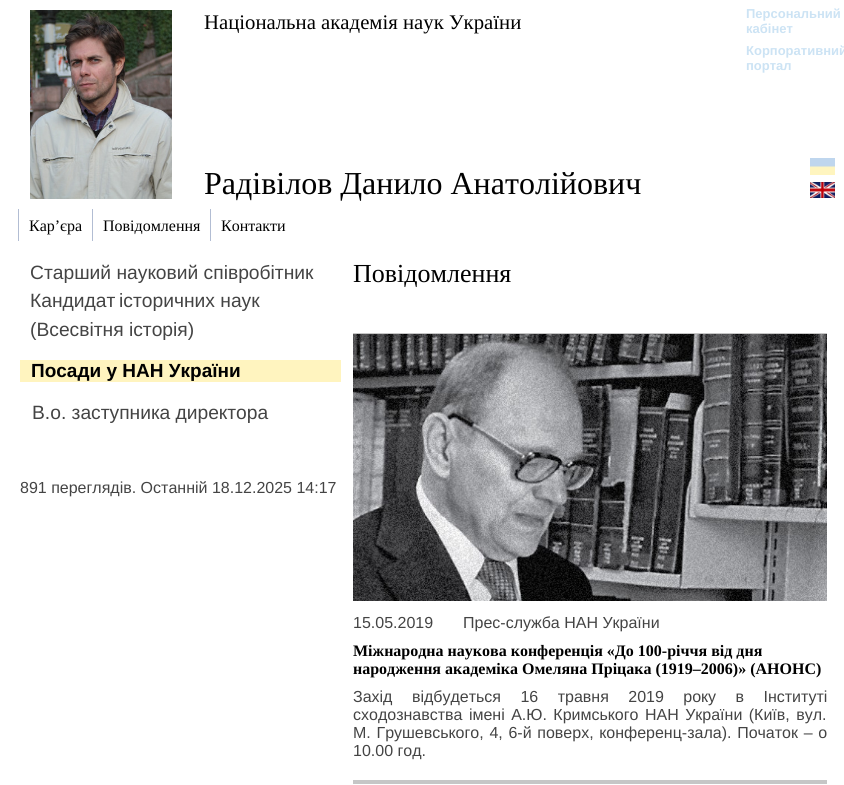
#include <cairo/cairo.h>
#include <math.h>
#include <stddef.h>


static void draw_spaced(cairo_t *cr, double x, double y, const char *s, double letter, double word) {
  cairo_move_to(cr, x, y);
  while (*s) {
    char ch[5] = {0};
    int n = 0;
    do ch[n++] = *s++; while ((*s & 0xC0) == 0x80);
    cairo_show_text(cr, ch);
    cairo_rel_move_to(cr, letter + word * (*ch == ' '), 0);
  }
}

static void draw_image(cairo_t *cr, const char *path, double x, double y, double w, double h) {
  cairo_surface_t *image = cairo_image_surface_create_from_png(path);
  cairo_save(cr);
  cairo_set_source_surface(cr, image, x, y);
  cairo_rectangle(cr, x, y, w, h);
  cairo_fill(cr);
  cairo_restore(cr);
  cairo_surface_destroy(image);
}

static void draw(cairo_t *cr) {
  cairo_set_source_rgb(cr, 1, 1, 1);
  cairo_paint(cr);
  draw_image(cr, "images/1.png", 30, 10, 142, 189);
  draw_image(cr, "images/2.png", 810, 158, 25, 17);
  draw_image(cr, "images/3.png", 810, 182, 25, 16);
  cairo_set_source_rgb(cr, 178 / 255.0, 189 / 255.0, 211 / 255.0);
  cairo_rectangle(cr, 18, 209, 1, 32);
  cairo_fill(cr);
  cairo_rectangle(cr, 92, 209, 1, 32);
  cairo_fill(cr);
  cairo_rectangle(cr, 210, 209, 1, 32);
  cairo_fill(cr);
  cairo_set_source_rgb(cr, 1, 244 / 255.0, 191 / 255.0);
  cairo_rectangle(cr, 20, 360, 321, 22);
  cairo_fill(cr);
  cairo_set_source_rgb(cr, 198 / 255.0, 198 / 255.0, 198 / 255.0);
  cairo_rectangle(cr, 353, 333, 474, 1);
  cairo_fill(cr);
  draw_image(cr, "images/4.png", 353, 334, 474, 267);
  cairo_rectangle(cr, 353, 780, 474, 4);
  cairo_fill(cr);
  cairo_select_font_face(cr, "Liberation Serif", CAIRO_FONT_SLANT_NORMAL, CAIRO_FONT_WEIGHT_NORMAL);
  cairo_set_font_size(cr, 20.75);
  cairo_set_source_rgb(cr, 0, 0, 0);
  cairo_move_to(cr, 204, 29);
  cairo_show_text(cr, "Національна академія наук України");
  cairo_select_font_face(cr, "Liberation Sans", CAIRO_FONT_SLANT_NORMAL, CAIRO_FONT_WEIGHT_BOLD);
  cairo_set_font_size(cr, 13);
  cairo_set_source_rgb(cr, 204 / 255.0, 227 / 255.0, 244 / 255.0);
  cairo_move_to(cr, 746, 18);
  cairo_show_text(cr, "Персональний");
  cairo_move_to(cr, 746, 33);
  cairo_show_text(cr, "кабінет");
  cairo_move_to(cr, 746, 55);
  cairo_show_text(cr, "Корпоративний");
  cairo_move_to(cr, 746, 70);
  cairo_show_text(cr, "портал");
  cairo_select_font_face(cr, "Liberation Serif", CAIRO_FONT_SLANT_NORMAL, CAIRO_FONT_WEIGHT_NORMAL);
  cairo_set_font_size(cr, 32);
  cairo_set_source_rgb(cr, 0, 0, 0);
  cairo_move_to(cr, 204, 194);
  cairo_show_text(cr, "Радівілов Данило Анатолійович");
  cairo_set_font_size(cr, 16);
  cairo_move_to(cr, 29, 231);
  cairo_show_text(cr, "Кар’єра");
  cairo_move_to(cr, 103, 231);
  cairo_show_text(cr, "Повідомлення");
  cairo_move_to(cr, 221, 231);
  cairo_show_text(cr, "Контакти");
  cairo_select_font_face(cr, "Liberation Sans", CAIRO_FONT_SLANT_NORMAL, CAIRO_FONT_WEIGHT_NORMAL);
  cairo_set_font_size(cr, 19.25);
  cairo_set_source_rgb(cr, 68 / 255.0, 68 / 255.0, 68 / 255.0);
  cairo_move_to(cr, 30, 279);
  cairo_show_text(cr, "Старший науковий співробітник");
  cairo_move_to(cr, 30, 307);
  cairo_show_text(cr, "Кандидат");
  cairo_move_to(cr, 119, 307);
  cairo_show_text(cr, "історичних наук");
  cairo_move_to(cr, 30, 336);
  cairo_show_text(cr, "(Всесвітня історія)");
  cairo_select_font_face(cr, "Liberation Sans", CAIRO_FONT_SLANT_NORMAL, CAIRO_FONT_WEIGHT_BOLD);
  cairo_set_font_size(cr, 19);
  cairo_set_source_rgb(cr, 0, 0, 0);
  cairo_move_to(cr, 31, 377);
  cairo_show_text(cr, "Посади у НАН України");
  cairo_select_font_face(cr, "Liberation Sans", CAIRO_FONT_SLANT_NORMAL, CAIRO_FONT_WEIGHT_NORMAL);
  cairo_set_font_size(cr, 19.25);
  cairo_set_source_rgb(cr, 68 / 255.0, 68 / 255.0, 68 / 255.0);
  cairo_move_to(cr, 32, 419);
  cairo_show_text(cr, "В.о. заступника директора");
  cairo_set_font_size(cr, 16);
  cairo_move_to(cr, 20, 493);
  cairo_show_text(cr, "891 переглядів. Останній 18.12.2025 14:17");
  cairo_select_font_face(cr, "Liberation Serif", CAIRO_FONT_SLANT_NORMAL, CAIRO_FONT_WEIGHT_NORMAL);
  cairo_set_font_size(cr, 26);
  cairo_set_source_rgb(cr, 0, 0, 0);
  cairo_move_to(cr, 353, 282);
  cairo_show_text(cr, "Повідомлення");
  cairo_select_font_face(cr, "Liberation Sans", CAIRO_FONT_SLANT_NORMAL, CAIRO_FONT_WEIGHT_NORMAL);
  cairo_set_font_size(cr, 16);
  cairo_set_source_rgb(cr, 68 / 255.0, 68 / 255.0, 68 / 255.0);
  cairo_move_to(cr, 353, 628);
  cairo_show_text(cr, "15.05.2019");
  cairo_move_to(cr, 463, 628);
  cairo_show_text(cr, "Прес-служба НАН України");
  cairo_select_font_face(cr, "Liberation Serif", CAIRO_FONT_SLANT_NORMAL, CAIRO_FONT_WEIGHT_BOLD);
  cairo_set_source_rgb(cr, 0, 0, 0);
  cairo_move_to(cr, 353, 656);
  cairo_show_text(cr, "Міжнародна наукова конференція «До 100-річчя від дня");
  cairo_move_to(cr, 353, 674);
  cairo_show_text(cr, "народження академіка Омеляна Пріцака (1919–2006)» (АНОНС)");
  cairo_select_font_face(cr, "Liberation Sans", CAIRO_FONT_SLANT_NORMAL, CAIRO_FONT_WEIGHT_NORMAL);
  cairo_set_source_rgb(cr, 68 / 255.0, 68 / 255.0, 68 / 255.0);
  draw_spaced(cr, 353, 702, "Захід відбудеться 16 травня 2019 року в Інституті", 0, 15);
  draw_spaced(cr, 353, 720, "сходознавства імені А.Ю. Кримського НАН України (Київ, вул.", 0, 2);
  draw_spaced(cr, 353, 738, "М. Грушевського, 4, 6-й поверх, конференц-зала). Початок – о", 0, 1.25);
  cairo_move_to(cr, 353, 756);
  cairo_show_text(cr, "10.00 год.");
}

int main(void) {
  cairo_surface_t *surface = cairo_image_surface_create(CAIRO_FORMAT_RGB24, 844, 785);
  cairo_t *cr = cairo_create(surface);
  cairo_font_options_t *options = cairo_font_options_create();
  cairo_font_options_set_hint_metrics(options, CAIRO_HINT_METRICS_OFF);
  cairo_font_options_set_hint_style(options, CAIRO_HINT_STYLE_NONE);
  cairo_set_font_options(cr, options);
  cairo_set_miter_limit(cr, 4);
  draw(cr);
  cairo_surface_write_to_png(surface, "out.png");
  cairo_font_options_destroy(options);
  cairo_destroy(cr);
  cairo_surface_destroy(surface);
  return 0;
}
